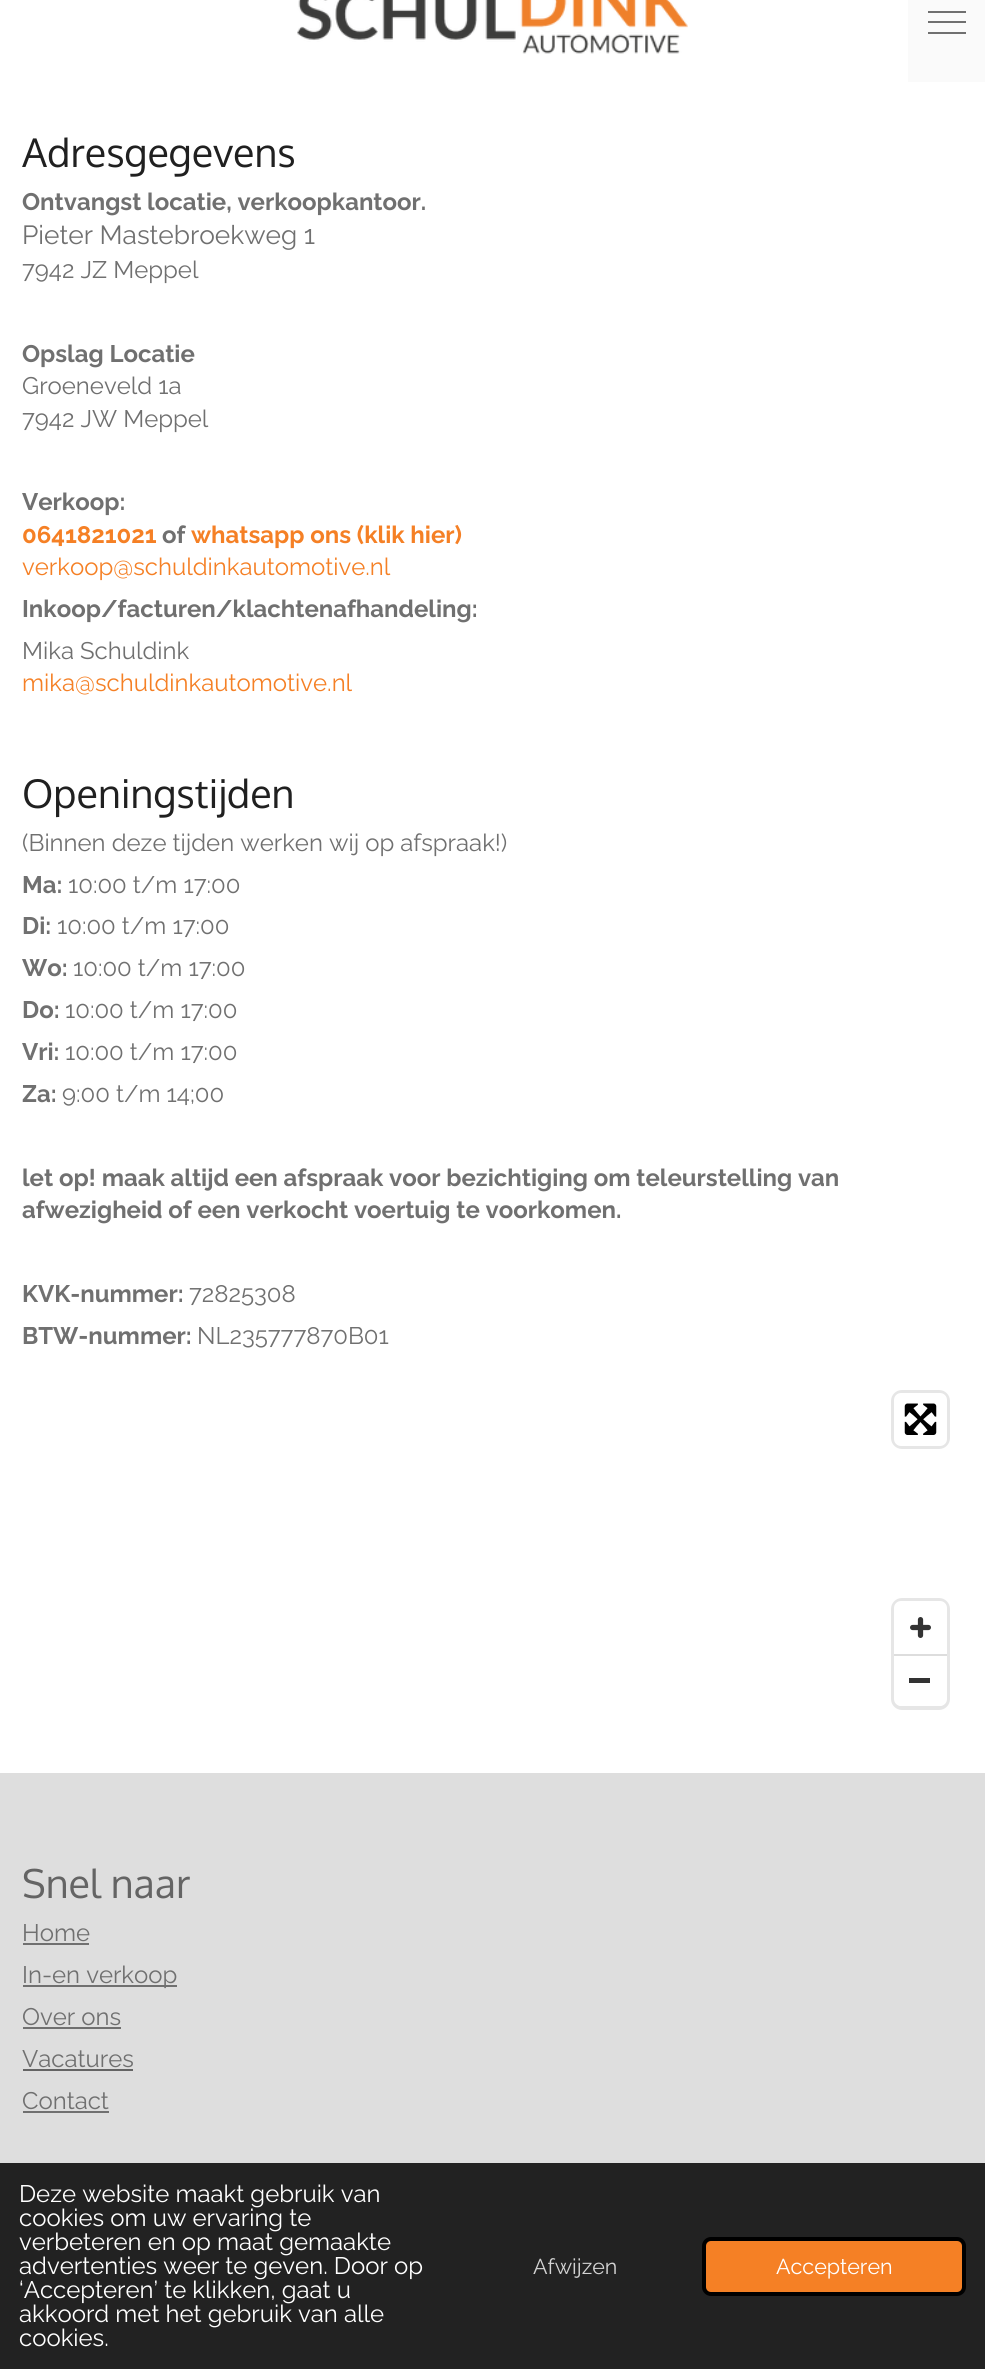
#include <cairo/cairo.h>
#include <math.h>
#include <stddef.h>


static void rounded_rect(cairo_t *cr, double x, double y, double w, double h, double r) {
  cairo_new_sub_path(cr);
  cairo_arc(cr, x + w - r, y + h - r, r, 0, M_PI / 2);
  cairo_arc(cr, x + r, y + h - r, r, M_PI / 2, M_PI);
  cairo_arc(cr, x + r, y + r, r, M_PI, 1.5 * M_PI);
  cairo_arc(cr, x + w - r, y + r, r, 1.5 * M_PI, 2 * M_PI);
  cairo_close_path(cr);
}

static void draw_image(cairo_t *cr, const char *path, double x, double y, double w, double h) {
  cairo_surface_t *image = cairo_image_surface_create_from_png(path);
  cairo_save(cr);
  cairo_set_source_surface(cr, image, x, y);
  cairo_rectangle(cr, x, y, w, h);
  cairo_fill(cr);
  cairo_restore(cr);
  cairo_surface_destroy(image);
}

static void draw(cairo_t *cr) {
  cairo_set_source_rgb(cr, 1, 1, 1);
  cairo_paint(cr);
  draw_image(cr, "images/1.png", 297, 0, 391, 54);
  cairo_set_source_rgb(cr, 250 / 255.0, 250 / 255.0, 250 / 255.0);
  cairo_rectangle(cr, 908, 0, 77, 82);
  cairo_fill(cr);
  cairo_set_source_rgb(cr, 112 / 255.0, 112 / 255.0, 112 / 255.0);
  cairo_rectangle(cr, 928, 21, 38, 2);
  cairo_fill(cr);
  cairo_rectangle(cr, 928, 11, 38, 2);
  cairo_fill(cr);
  cairo_rectangle(cr, 928, 32, 38, 2);
  cairo_fill(cr);
  rounded_rect(cr, 893, 1392, 55, 55, 9);
  cairo_set_source_rgb(cr, 230 / 255.0, 230 / 255.0, 230 / 255.0);
  cairo_set_line_width(cr, 4);
  cairo_stroke(cr);
  cairo_set_source_rgb(cr, 1, 1, 1);
  rounded_rect(cr, 894, 1393, 53, 53, 7);
  cairo_fill(cr);
  draw_image(cr, "images/2.png", 904, 1403, 33, 32);
  rounded_rect(cr, 893, 1600, 55, 108, 9);
  cairo_set_source_rgb(cr, 230 / 255.0, 230 / 255.0, 230 / 255.0);
  cairo_stroke(cr);
  cairo_set_source_rgb(cr, 1, 1, 1);
  rounded_rect(cr, 894, 1601, 53, 105, 7);
  cairo_fill(cr);
  draw_image(cr, "images/3.png", 910, 1617, 21, 21);
  cairo_set_source_rgb(cr, 51 / 255.0, 51 / 255.0, 51 / 255.0);
  cairo_rectangle(cr, 909, 1678, 21, 5);
  cairo_fill(cr);
  cairo_set_source_rgb(cr, 221 / 255.0, 221 / 255.0, 221 / 255.0);
  cairo_rectangle(cr, 894, 1654, 53, 2);
  cairo_fill(cr);
  cairo_set_source_rgb(cr, 222 / 255.0, 222 / 255.0, 222 / 255.0);
  cairo_rectangle(cr, 0, 1773, 985, 390);
  cairo_fill(cr);
  cairo_set_source_rgb(cr, 112 / 255.0, 112 / 255.0, 112 / 255.0);
  cairo_rectangle(cr, 23, 1943, 66, 2);
  cairo_fill(cr);
  cairo_rectangle(cr, 23, 1985, 154, 2);
  cairo_fill(cr);
  cairo_rectangle(cr, 23, 2027, 98, 2);
  cairo_fill(cr);
  cairo_set_source_rgb(cr, 100 / 255.0, 100 / 255.0, 100 / 255.0);
  cairo_rectangle(cr, 23, 2069, 110, 2);
  cairo_fill(cr);
  cairo_set_source_rgb(cr, 112 / 255.0, 112 / 255.0, 112 / 255.0);
  cairo_rectangle(cr, 23, 2111, 86, 2);
  cairo_fill(cr);
  cairo_set_source_rgb(cr, 34 / 255.0, 34 / 255.0, 34 / 255.0);
  cairo_rectangle(cr, 0, 2163, 985, 206);
  cairo_fill(cr);
  cairo_set_source_rgb(cr, 245 / 255.0, 128 / 255.0, 37 / 255.0);
  rounded_rect(cr, 704, 2239, 260, 55, 7);
  cairo_fill_preserve(cr);
  cairo_set_source_rgb(cr, 0, 0, 0);
  cairo_stroke(cr);
  cairo_select_font_face(cr, "Oxygen", CAIRO_FONT_SLANT_NORMAL, CAIRO_FONT_WEIGHT_NORMAL);
  cairo_set_font_size(cr, 39.5);
  cairo_set_source_rgb(cr, 32 / 255.0, 32 / 255.0, 32 / 255.0);
  cairo_move_to(cr, 22, 167);
  cairo_show_text(cr, "Adresgegevens");
  cairo_select_font_face(cr, "Raleway", CAIRO_FONT_SLANT_NORMAL, CAIRO_FONT_WEIGHT_BOLD);
  cairo_set_font_size(cr, 23.95);
  cairo_set_source_rgb(cr, 112 / 255.0, 112 / 255.0, 112 / 255.0);
  cairo_move_to(cr, 22, 210);
  cairo_show_text(cr, "Ontvangst locatie, verkoopkantoor.");
  cairo_select_font_face(cr, "Raleway", CAIRO_FONT_SLANT_NORMAL, CAIRO_FONT_WEIGHT_NORMAL);
  cairo_set_font_size(cr, 26.25);
  cairo_move_to(cr, 22, 244);
  cairo_show_text(cr, "Pieter Mastebroekweg 1");
  cairo_set_font_size(cr, 23.95);
  cairo_move_to(cr, 22, 278);
  cairo_show_text(cr, "7942 JZ Meppel");
  cairo_select_font_face(cr, "Raleway", CAIRO_FONT_SLANT_NORMAL, CAIRO_FONT_WEIGHT_BOLD);
  cairo_move_to(cr, 22, 362);
  cairo_show_text(cr, "Opslag Locatie");
  cairo_select_font_face(cr, "Raleway", CAIRO_FONT_SLANT_NORMAL, CAIRO_FONT_WEIGHT_NORMAL);
  cairo_move_to(cr, 22, 394);
  cairo_show_text(cr, "Groeneveld 1a");
  cairo_move_to(cr, 22, 427);
  cairo_show_text(cr, "7942 JW Meppel");
  cairo_select_font_face(cr, "Raleway", CAIRO_FONT_SLANT_NORMAL, CAIRO_FONT_WEIGHT_BOLD);
  cairo_move_to(cr, 22, 510);
  cairo_show_text(cr, "Verkoop:");
  cairo_set_source_rgb(cr, 245 / 255.0, 128 / 255.0, 37 / 255.0);
  cairo_move_to(cr, 22, 543);
  cairo_show_text(cr, "0641821021");
  cairo_set_source_rgb(cr, 112 / 255.0, 112 / 255.0, 112 / 255.0);
  cairo_move_to(cr, 162, 543);
  cairo_show_text(cr, "of");
  cairo_set_source_rgb(cr, 245 / 255.0, 128 / 255.0, 37 / 255.0);
  cairo_move_to(cr, 191, 543);
  cairo_show_text(cr, "whatsapp ons (klik hier)");
  cairo_select_font_face(cr, "Raleway", CAIRO_FONT_SLANT_NORMAL, CAIRO_FONT_WEIGHT_NORMAL);
  cairo_move_to(cr, 22, 575);
  cairo_show_text(cr, "verkoop@schuldinkautomotive.nl");
  cairo_select_font_face(cr, "Raleway", CAIRO_FONT_SLANT_NORMAL, CAIRO_FONT_WEIGHT_BOLD);
  cairo_set_source_rgb(cr, 112 / 255.0, 112 / 255.0, 112 / 255.0);
  cairo_move_to(cr, 22, 617);
  cairo_show_text(cr, "Inkoop/facturen/klachtenafhandeling:");
  cairo_select_font_face(cr, "Raleway", CAIRO_FONT_SLANT_NORMAL, CAIRO_FONT_WEIGHT_NORMAL);
  cairo_move_to(cr, 22, 659);
  cairo_show_text(cr, "Mika Schuldink");
  cairo_set_source_rgb(cr, 245 / 255.0, 128 / 255.0, 37 / 255.0);
  cairo_move_to(cr, 22, 691);
  cairo_show_text(cr, "mika@schuldinkautomotive.nl");
  cairo_select_font_face(cr, "Oxygen", CAIRO_FONT_SLANT_NORMAL, CAIRO_FONT_WEIGHT_NORMAL);
  cairo_set_font_size(cr, 39.5);
  cairo_set_source_rgb(cr, 32 / 255.0, 32 / 255.0, 32 / 255.0);
  cairo_move_to(cr, 22, 808);
  cairo_show_text(cr, "Openingstijden");
  cairo_select_font_face(cr, "Raleway", CAIRO_FONT_SLANT_NORMAL, CAIRO_FONT_WEIGHT_NORMAL);
  cairo_set_font_size(cr, 23.95);
  cairo_set_source_rgb(cr, 112 / 255.0, 112 / 255.0, 112 / 255.0);
  cairo_move_to(cr, 22, 851);
  cairo_show_text(cr, "(Binnen deze tijden werken wij op afspraak!)");
  cairo_select_font_face(cr, "Raleway", CAIRO_FONT_SLANT_NORMAL, CAIRO_FONT_WEIGHT_BOLD);
  cairo_move_to(cr, 22, 893);
  cairo_show_text(cr, "Ma:");
  cairo_select_font_face(cr, "Raleway", CAIRO_FONT_SLANT_NORMAL, CAIRO_FONT_WEIGHT_NORMAL);
  cairo_move_to(cr, 68, 893);
  cairo_show_text(cr, "10:00 t/m 17:00");
  cairo_select_font_face(cr, "Raleway", CAIRO_FONT_SLANT_NORMAL, CAIRO_FONT_WEIGHT_BOLD);
  cairo_move_to(cr, 22, 934);
  cairo_show_text(cr, "Di:");
  cairo_select_font_face(cr, "Raleway", CAIRO_FONT_SLANT_NORMAL, CAIRO_FONT_WEIGHT_NORMAL);
  cairo_move_to(cr, 57, 934);
  cairo_show_text(cr, "10:00 t/m 17:00");
  cairo_select_font_face(cr, "Raleway", CAIRO_FONT_SLANT_NORMAL, CAIRO_FONT_WEIGHT_BOLD);
  cairo_move_to(cr, 22, 976);
  cairo_show_text(cr, "Wo:");
  cairo_select_font_face(cr, "Raleway", CAIRO_FONT_SLANT_NORMAL, CAIRO_FONT_WEIGHT_NORMAL);
  cairo_move_to(cr, 73, 976);
  cairo_show_text(cr, "10:00 t/m 17:00");
  cairo_select_font_face(cr, "Raleway", CAIRO_FONT_SLANT_NORMAL, CAIRO_FONT_WEIGHT_BOLD);
  cairo_move_to(cr, 22, 1018);
  cairo_show_text(cr, "Do:");
  cairo_select_font_face(cr, "Raleway", CAIRO_FONT_SLANT_NORMAL, CAIRO_FONT_WEIGHT_NORMAL);
  cairo_move_to(cr, 65, 1018);
  cairo_show_text(cr, "10:00 t/m 17:00");
  cairo_select_font_face(cr, "Raleway", CAIRO_FONT_SLANT_NORMAL, CAIRO_FONT_WEIGHT_BOLD);
  cairo_move_to(cr, 22, 1060);
  cairo_show_text(cr, "Vri:");
  cairo_select_font_face(cr, "Raleway", CAIRO_FONT_SLANT_NORMAL, CAIRO_FONT_WEIGHT_NORMAL);
  cairo_move_to(cr, 65, 1060);
  cairo_show_text(cr, "10:00 t/m 17:00");
  cairo_select_font_face(cr, "Raleway", CAIRO_FONT_SLANT_NORMAL, CAIRO_FONT_WEIGHT_BOLD);
  cairo_move_to(cr, 22, 1102);
  cairo_show_text(cr, "Za:");
  cairo_select_font_face(cr, "Raleway", CAIRO_FONT_SLANT_NORMAL, CAIRO_FONT_WEIGHT_NORMAL);
  cairo_move_to(cr, 62, 1102);
  cairo_show_text(cr, "9:00 t/m 14;00");
  cairo_select_font_face(cr, "Raleway", CAIRO_FONT_SLANT_NORMAL, CAIRO_FONT_WEIGHT_BOLD);
  cairo_move_to(cr, 22, 1186);
  cairo_show_text(cr, "let op! maak altijd een afspraak voor bezichtiging om teleurstelling van");
  cairo_move_to(cr, 22, 1218);
  cairo_show_text(cr, "afwezigheid of een verkocht voertuig te voorkomen.");
  cairo_move_to(cr, 22, 1302);
  cairo_show_text(cr, "KVK-nummer:");
  cairo_select_font_face(cr, "Raleway", CAIRO_FONT_SLANT_NORMAL, CAIRO_FONT_WEIGHT_NORMAL);
  cairo_move_to(cr, 189, 1302);
  cairo_show_text(cr, "72825308");
  cairo_select_font_face(cr, "Raleway", CAIRO_FONT_SLANT_NORMAL, CAIRO_FONT_WEIGHT_BOLD);
  cairo_move_to(cr, 22, 1344);
  cairo_show_text(cr, "BTW-nummer:");
  cairo_select_font_face(cr, "Raleway", CAIRO_FONT_SLANT_NORMAL, CAIRO_FONT_WEIGHT_NORMAL);
  cairo_move_to(cr, 197, 1344);
  cairo_show_text(cr, "NL235777870B01");
  cairo_select_font_face(cr, "Oxygen", CAIRO_FONT_SLANT_NORMAL, CAIRO_FONT_WEIGHT_NORMAL);
  cairo_set_font_size(cr, 39.5);
  cairo_set_source_rgb(cr, 100 / 255.0, 100 / 255.0, 100 / 255.0);
  cairo_move_to(cr, 22, 1898);
  cairo_show_text(cr, "Snel naar");
  cairo_select_font_face(cr, "Raleway", CAIRO_FONT_SLANT_NORMAL, CAIRO_FONT_WEIGHT_NORMAL);
  cairo_set_font_size(cr, 23.95);
  cairo_set_source_rgb(cr, 112 / 255.0, 112 / 255.0, 112 / 255.0);
  cairo_move_to(cr, 22, 1941);
  cairo_show_text(cr, "Home");
  cairo_move_to(cr, 22, 1983);
  cairo_show_text(cr, "In-en verkoop");
  cairo_move_to(cr, 22, 2025);
  cairo_show_text(cr, "Over ons");
  cairo_move_to(cr, 22, 2067);
  cairo_show_text(cr, "Vacatures");
  cairo_move_to(cr, 22, 2109);
  cairo_show_text(cr, "Contact");
  cairo_set_source_rgb(cr, 1, 1, 1);
  cairo_move_to(cr, 19, 2202);
  cairo_show_text(cr, "Deze website maakt gebruik van");
  cairo_move_to(cr, 19, 2226);
  cairo_show_text(cr, "cookies om uw ervaring te");
  cairo_move_to(cr, 19, 2250);
  cairo_show_text(cr, "verbeteren en op maat gemaakte");
  cairo_move_to(cr, 19, 2274);
  cairo_show_text(cr, "advertenties weer te geven. Door op");
  cairo_move_to(cr, 19, 2298);
  cairo_show_text(cr, "‘Accepteren’ te klikken, gaat u");
  cairo_move_to(cr, 19, 2322);
  cairo_show_text(cr, "akkoord met het gebruik van alle");
  cairo_move_to(cr, 19, 2346);
  cairo_show_text(cr, "cookies.");
  cairo_set_font_size(cr, 21.5);
  cairo_set_source_rgb(cr, 211 / 255.0, 211 / 255.0, 211 / 255.0);
  cairo_move_to(cr, 533, 2274);
  cairo_show_text(cr, "Afwijzen");
  cairo_set_source_rgb(cr, 1, 1, 1);
  cairo_move_to(cr, 776, 2274);
  cairo_show_text(cr, "Accepteren");
}

int main(void) {
  cairo_surface_t *surface = cairo_image_surface_create(CAIRO_FORMAT_RGB24, 985, 2369);
  cairo_t *cr = cairo_create(surface);
  cairo_font_options_t *options = cairo_font_options_create();
  cairo_font_options_set_hint_metrics(options, CAIRO_HINT_METRICS_OFF);
  cairo_font_options_set_hint_style(options, CAIRO_HINT_STYLE_NONE);
  cairo_set_font_options(cr, options);
  cairo_set_miter_limit(cr, 4);
  draw(cr);
  cairo_surface_write_to_png(surface, "out.png");
  cairo_font_options_destroy(options);
  cairo_destroy(cr);
  cairo_surface_destroy(surface);
  return 0;
}
